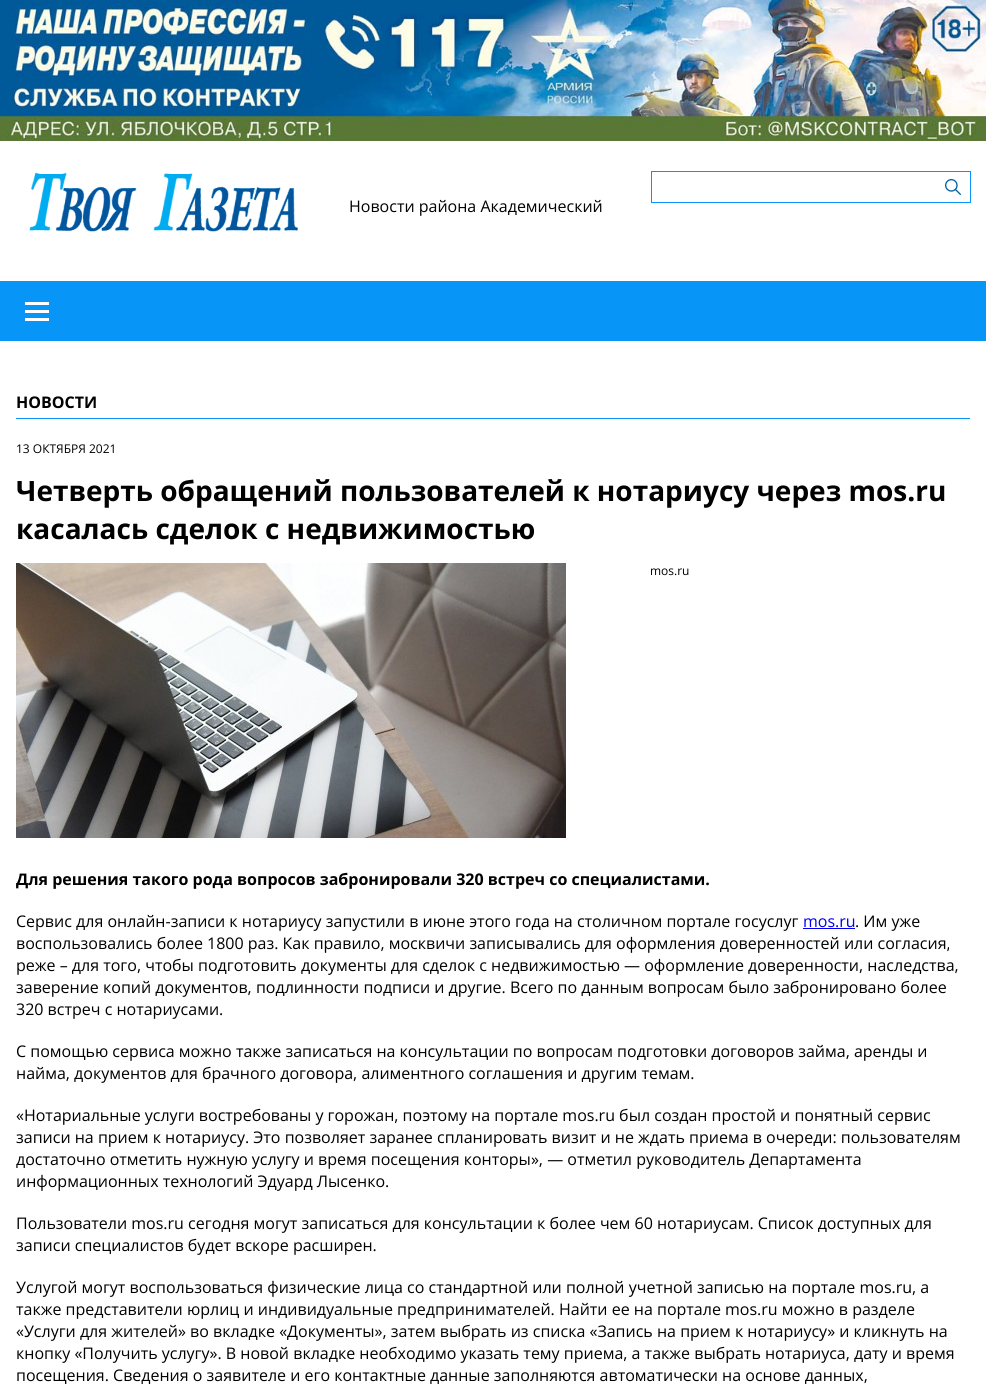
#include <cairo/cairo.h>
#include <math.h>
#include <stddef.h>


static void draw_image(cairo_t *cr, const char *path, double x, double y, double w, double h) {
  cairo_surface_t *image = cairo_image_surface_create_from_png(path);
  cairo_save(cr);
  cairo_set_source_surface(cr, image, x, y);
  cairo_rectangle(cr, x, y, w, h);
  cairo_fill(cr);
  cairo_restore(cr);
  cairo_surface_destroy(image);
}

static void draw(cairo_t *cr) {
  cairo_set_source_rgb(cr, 1, 1, 1);
  cairo_paint(cr);
  draw_image(cr, "images/1.png", 0, 0, 986, 141);
  draw_image(cr, "images/2.png", 29, 172, 269, 60);
  draw_image(cr, "images/3.png", 945, 179, 16, 16);
  cairo_rectangle(cr, 651.5, 171.5, 319, 31);
  cairo_set_source_rgb(cr, 7 / 255.0, 150 / 255.0, 247 / 255.0);
  cairo_set_line_width(cr, 1);
  cairo_stroke(cr);
  cairo_rectangle(cr, 0, 281, 986, 60);
  cairo_fill(cr);
  cairo_set_source_rgb(cr, 1, 1, 1);
  cairo_rectangle(cr, 25, 302, 24, 3);
  cairo_fill(cr);
  cairo_rectangle(cr, 25, 310, 24, 3);
  cairo_fill(cr);
  cairo_rectangle(cr, 25, 318, 24, 3);
  cairo_fill(cr);
  cairo_set_source_rgb(cr, 7 / 255.0, 150 / 255.0, 247 / 255.0);
  cairo_rectangle(cr, 16, 418, 954, 1);
  cairo_fill(cr);
  draw_image(cr, "images/4.png", 16, 563, 550, 275);
  cairo_set_source_rgb(cr, 0, 0, 238 / 255.0);
  cairo_rectangle(cr, 803, 928, 52, 1);
  cairo_fill(cr);
  cairo_select_font_face(cr, "Open Sans", CAIRO_FONT_SLANT_NORMAL, CAIRO_FONT_WEIGHT_NORMAL);
  cairo_set_font_size(cr, 16);
  cairo_set_source_rgb(cr, 0, 0, 0);
  cairo_move_to(cr, 349, 212);
  cairo_show_text(cr, "Новости района Академический");
  cairo_select_font_face(cr, "Open Sans", CAIRO_FONT_SLANT_NORMAL, CAIRO_FONT_WEIGHT_BOLD);
  cairo_move_to(cr, 16, 408);
  cairo_show_text(cr, "НОВОСТИ");
  cairo_select_font_face(cr, "Open Sans", CAIRO_FONT_SLANT_NORMAL, CAIRO_FONT_WEIGHT_NORMAL);
  cairo_set_font_size(cr, 12);
  cairo_move_to(cr, 16, 453);
  cairo_show_text(cr, "13 ОКТЯБРЯ 2021");
  cairo_select_font_face(cr, "Open Sans", CAIRO_FONT_SLANT_NORMAL, CAIRO_FONT_WEIGHT_BOLD);
  cairo_set_font_size(cr, 28);
  cairo_move_to(cr, 16, 501);
  cairo_show_text(cr, "Четверть обращений пользователей к нотариусу через mos.ru");
  cairo_move_to(cr, 16, 539);
  cairo_show_text(cr, "касалась сделок с недвижимостью");
  cairo_select_font_face(cr, "Open Sans", CAIRO_FONT_SLANT_NORMAL, CAIRO_FONT_WEIGHT_NORMAL);
  cairo_set_font_size(cr, 12);
  cairo_move_to(cr, 650, 575);
  cairo_show_text(cr, "mos.ru");
  cairo_select_font_face(cr, "Open Sans", CAIRO_FONT_SLANT_NORMAL, CAIRO_FONT_WEIGHT_BOLD);
  cairo_set_font_size(cr, 16);
  cairo_move_to(cr, 16, 885);
  cairo_show_text(cr, "Для решения такого рода вопросов забронировали 320 встреч со специалистами.");
  cairo_select_font_face(cr, "Open Sans", CAIRO_FONT_SLANT_NORMAL, CAIRO_FONT_WEIGHT_NORMAL);
  cairo_move_to(cr, 16, 927);
  cairo_show_text(cr, "Сервис для онлайн-записи к нотариусу запустили в июне этого года на столичном портале госуслуг");
  cairo_set_source_rgb(cr, 0, 0, 238 / 255.0);
  cairo_move_to(cr, 803, 927);
  cairo_show_text(cr, "mos.ru");
  cairo_set_source_rgb(cr, 0, 0, 0);
  cairo_move_to(cr, 855, 927);
  cairo_show_text(cr, ". Им уже");
  cairo_move_to(cr, 16, 949);
  cairo_show_text(cr, "воспользовались более 1800 раз. Как правило, москвичи записывались для оформления доверенностей или согласия,");
  cairo_move_to(cr, 16, 971);
  cairo_show_text(cr, "реже – для того, чтобы подготовить документы для сделок с недвижимостью — оформление доверенности, наследства,");
  cairo_move_to(cr, 16, 993);
  cairo_show_text(cr, "заверение копий документов, подлинности подписи и другие. Всего по данным вопросам было забронировано более");
  cairo_move_to(cr, 16, 1015);
  cairo_show_text(cr, "320 встреч с нотариусами.");
  cairo_move_to(cr, 16, 1057);
  cairo_show_text(cr, "С помощью сервиса можно также записаться на консультации по вопросам подготовки договоров займа, аренды и");
  cairo_move_to(cr, 16, 1079);
  cairo_show_text(cr, "найма, документов для брачного договора, алиментного соглашения и другим темам.");
  cairo_move_to(cr, 16, 1121);
  cairo_show_text(cr, "«Нотариальные услуги востребованы у горожан, поэтому на портале mos.ru был создан простой и понятный сервис");
  cairo_move_to(cr, 16, 1143);
  cairo_show_text(cr, "записи на прием к нотариусу. Это позволяет заранее спланировать визит и не ждать приема в очереди: пользователям");
  cairo_move_to(cr, 16, 1165);
  cairo_show_text(cr, "достаточно отметить нужную услугу и время посещения конторы», — отметил руководитель Департамента");
  cairo_move_to(cr, 16, 1187);
  cairo_show_text(cr, "информационных технологий Эдуард Лысенко.");
  cairo_move_to(cr, 16, 1229);
  cairo_show_text(cr, "Пользователи mos.ru сегодня могут записаться для консультации к более чем 60 нотариусам. Список доступных для");
  cairo_move_to(cr, 16, 1251);
  cairo_show_text(cr, "записи специалистов будет вскоре расширен.");
  cairo_move_to(cr, 16, 1293);
  cairo_show_text(cr, "Услугой могут воспользоваться физические лица со стандартной или полной учетной записью на портале mos.ru, а");
  cairo_move_to(cr, 16, 1315);
  cairo_show_text(cr, "также представители юрлиц и индивидуальные предпринимателей. Найти ее на портале mos.ru можно в разделе");
  cairo_move_to(cr, 16, 1337);
  cairo_show_text(cr, "«Услуги для жителей» во вкладке «Документы», затем выбрать из списка «Запись на прием к нотариусу» и кликнуть на");
  cairo_move_to(cr, 16, 1359);
  cairo_show_text(cr, "кнопку «Получить услугу». В новой вкладке необходимо указать тему приема, а также выбрать нотариуса, дату и время");
  cairo_move_to(cr, 16, 1381);
  cairo_show_text(cr, "посещения. Сведения о заявителе и его контактные данные заполняются автоматически на основе данных,");
}

int main(void) {
  cairo_surface_t *surface = cairo_image_surface_create(CAIRO_FORMAT_RGB24, 986, 1386);
  cairo_t *cr = cairo_create(surface);
  cairo_font_options_t *options = cairo_font_options_create();
  cairo_font_options_set_hint_metrics(options, CAIRO_HINT_METRICS_OFF);
  cairo_font_options_set_hint_style(options, CAIRO_HINT_STYLE_NONE);
  cairo_set_font_options(cr, options);
  cairo_set_miter_limit(cr, 4);
  draw(cr);
  cairo_surface_write_to_png(surface, "out.png");
  cairo_font_options_destroy(options);
  cairo_destroy(cr);
  cairo_surface_destroy(surface);
  return 0;
}
